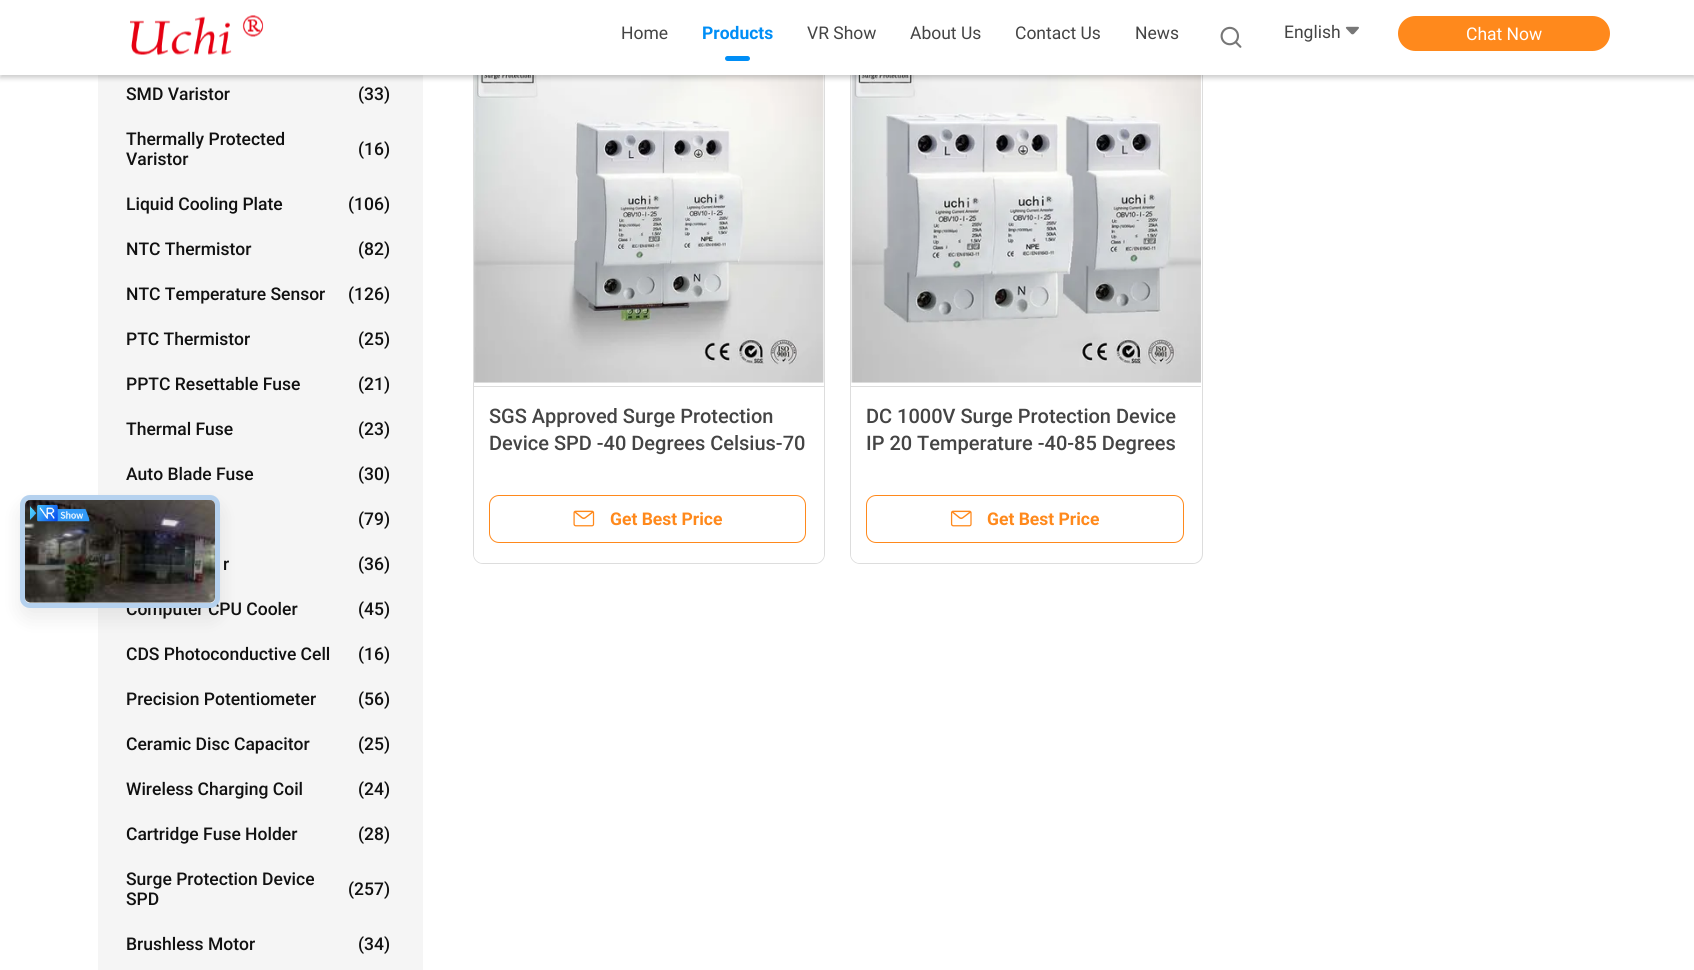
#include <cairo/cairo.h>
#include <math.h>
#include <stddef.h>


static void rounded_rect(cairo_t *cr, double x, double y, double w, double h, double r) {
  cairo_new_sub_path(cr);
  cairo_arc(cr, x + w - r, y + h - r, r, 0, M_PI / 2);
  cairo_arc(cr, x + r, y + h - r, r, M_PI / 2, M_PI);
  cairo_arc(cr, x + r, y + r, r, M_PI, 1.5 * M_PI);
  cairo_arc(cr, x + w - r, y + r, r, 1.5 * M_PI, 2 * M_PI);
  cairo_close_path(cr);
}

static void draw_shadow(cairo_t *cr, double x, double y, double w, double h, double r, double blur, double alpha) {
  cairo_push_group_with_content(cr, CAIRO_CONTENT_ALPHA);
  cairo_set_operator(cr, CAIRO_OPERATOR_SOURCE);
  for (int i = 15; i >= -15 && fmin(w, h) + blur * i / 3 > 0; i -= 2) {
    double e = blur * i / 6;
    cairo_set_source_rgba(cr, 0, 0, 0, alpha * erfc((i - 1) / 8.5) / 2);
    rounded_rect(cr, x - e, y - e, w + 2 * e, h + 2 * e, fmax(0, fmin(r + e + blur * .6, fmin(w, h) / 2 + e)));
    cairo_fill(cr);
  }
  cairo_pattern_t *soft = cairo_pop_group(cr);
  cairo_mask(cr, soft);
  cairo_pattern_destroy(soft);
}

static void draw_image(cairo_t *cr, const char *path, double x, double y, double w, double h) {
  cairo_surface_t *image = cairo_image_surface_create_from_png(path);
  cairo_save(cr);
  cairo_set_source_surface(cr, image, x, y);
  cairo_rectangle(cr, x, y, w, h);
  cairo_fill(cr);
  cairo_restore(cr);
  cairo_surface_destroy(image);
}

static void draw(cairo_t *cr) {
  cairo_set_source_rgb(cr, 1, 1, 1);
  cairo_paint(cr);
  cairo_set_source_rgb(cr, 245 / 255.0, 245 / 255.0, 245 / 255.0);
  cairo_rectangle(cr, 98, 75, 325, 895);
  cairo_fill(cr);
  rounded_rect(cr, 473.5, 31.5, 351, 532, 9.5);
  cairo_set_source_rgb(cr, 221 / 255.0, 221 / 255.0, 221 / 255.0);
  cairo_set_line_width(cr, 1);
  cairo_stroke(cr);
  draw_image(cr, "images/6.png", 474, 75, 350, 308);
  rounded_rect(cr, 850.5, 31.5, 352, 532, 9.5);
  cairo_stroke(cr);
  draw_image(cr, "images/8.png", 851, 75, 350, 308);
  cairo_set_source_rgb(cr, 0, 0, 0);
  draw_shadow(cr, 0, 3, 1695, 75, 0, 2.5, 0.2);
  cairo_set_source_rgb(cr, 1, 1, 1);
  cairo_rectangle(cr, 0, 0, 1694, 75);
  cairo_fill(cr);
  draw_image(cr, "images/1.png", 130, 15, 134, 41);
  cairo_set_source_rgb(cr, 0, 142 / 255.0, 246 / 255.0);
  rounded_rect(cr, 725, 56, 25, 5, 2.5);
  cairo_fill(cr);
  draw_image(cr, "images/2.png", 1220, 26, 22, 22);
  draw_image(cr, "images/3.png", 1345, 26, 14, 9);
  cairo_set_source_rgb(cr, 1, 137 / 255.0, 28 / 255.0);
  rounded_rect(cr, 1398, 16, 212, 35, 17.5);
  cairo_fill(cr);
  cairo_set_source_rgb(cr, 0, 0, 0);
  draw_shadow(cr, 20, 505, 200, 113, 10, 10, 0.08);
  cairo_set_source_rgb(cr, 1, 1, 1);
  cairo_new_path(cr);
  cairo_move_to(cr, 474, 386);
  cairo_line_to(cr, 824, 386);
  cairo_line_to(cr, 824, 554);
  cairo_curve_to(cr, 824, 559, 820, 563, 815, 563);
  cairo_line_to(cr, 483, 563);
  cairo_curve_to(cr, 478, 563, 474, 559, 474, 554);
  cairo_close_path(cr);
  cairo_fill(cr);
  cairo_set_source_rgb(cr, 221 / 255.0, 221 / 255.0, 221 / 255.0);
  cairo_rectangle(cr, 474, 386, 350, 1);
  cairo_fill(cr);
  rounded_rect(cr, 489.5, 495.5, 316, 47, 9.5);
  cairo_set_source_rgb(cr, 1, 137 / 255.0, 28 / 255.0);
  cairo_stroke(cr);
  draw_image(cr, "images/7.png", 573, 510, 22, 17);
  cairo_set_source_rgb(cr, 1, 1, 1);
  cairo_new_path(cr);
  cairo_move_to(cr, 851, 386);
  cairo_line_to(cr, 1201, 386);
  cairo_line_to(cr, 1201, 554);
  cairo_curve_to(cr, 1201, 559, 1197, 563, 1192, 563);
  cairo_line_to(cr, 860, 563);
  cairo_curve_to(cr, 855, 563, 851, 559, 851, 554);
  cairo_close_path(cr);
  cairo_fill(cr);
  cairo_set_source_rgb(cr, 221 / 255.0, 221 / 255.0, 221 / 255.0);
  cairo_rectangle(cr, 851, 386, 350, 1);
  cairo_fill(cr);
  rounded_rect(cr, 866.5, 495.5, 317, 47, 9.5);
  cairo_set_source_rgb(cr, 1, 137 / 255.0, 28 / 255.0);
  cairo_stroke(cr);
  draw_image(cr, "images/9.png", 950, 510, 22, 17);
  cairo_select_font_face(cr, "Roboto", CAIRO_FONT_SLANT_NORMAL, CAIRO_FONT_WEIGHT_NORMAL);
  cairo_set_font_size(cr, 17.5);
  cairo_set_source_rgb(cr, 68 / 255.0, 68 / 255.0, 68 / 255.0);
  cairo_move_to(cr, 621, 39);
  cairo_show_text(cr, "Home");
  cairo_select_font_face(cr, "Roboto", CAIRO_FONT_SLANT_NORMAL, CAIRO_FONT_WEIGHT_BOLD);
  cairo_set_source_rgb(cr, 0, 142 / 255.0, 246 / 255.0);
  cairo_move_to(cr, 702, 39);
  cairo_show_text(cr, "Products");
  cairo_select_font_face(cr, "Roboto", CAIRO_FONT_SLANT_NORMAL, CAIRO_FONT_WEIGHT_NORMAL);
  cairo_set_source_rgb(cr, 68 / 255.0, 68 / 255.0, 68 / 255.0);
  cairo_move_to(cr, 807, 39);
  cairo_show_text(cr, "VR Show");
  cairo_move_to(cr, 910, 39);
  cairo_show_text(cr, "About Us");
  cairo_move_to(cr, 1015, 39);
  cairo_show_text(cr, "Contact Us");
  cairo_move_to(cr, 1135, 39);
  cairo_show_text(cr, "News");
  cairo_move_to(cr, 1284, 38);
  cairo_show_text(cr, "English");
  cairo_set_source_rgb(cr, 1, 1, 1);
  cairo_move_to(cr, 1466, 40);
  cairo_show_text(cr, "Chat Now");
  cairo_select_font_face(cr, "Roboto Medium", CAIRO_FONT_SLANT_NORMAL, CAIRO_FONT_WEIGHT_NORMAL);
  cairo_set_source_rgb(cr, 17 / 255.0, 17 / 255.0, 17 / 255.0);
  cairo_move_to(cr, 126, 100);
  cairo_show_text(cr, "SMD Varistor");
  cairo_move_to(cr, 358, 100);
  cairo_show_text(cr, "(33)");
  cairo_move_to(cr, 126, 145);
  cairo_show_text(cr, "Thermally Protected");
  cairo_move_to(cr, 358, 155);
  cairo_show_text(cr, "(16)");
  cairo_move_to(cr, 126, 165);
  cairo_show_text(cr, "Varistor");
  cairo_move_to(cr, 126, 210);
  cairo_show_text(cr, "Liquid Cooling Plate");
  cairo_move_to(cr, 348, 210);
  cairo_show_text(cr, "(106)");
  cairo_move_to(cr, 126, 255);
  cairo_show_text(cr, "NTC Thermistor");
  cairo_move_to(cr, 358, 255);
  cairo_show_text(cr, "(82)");
  cairo_move_to(cr, 126, 300);
  cairo_show_text(cr, "NTC Temperature Sensor");
  cairo_move_to(cr, 348, 300);
  cairo_show_text(cr, "(126)");
  cairo_move_to(cr, 126, 345);
  cairo_show_text(cr, "PTC Thermistor");
  cairo_move_to(cr, 358, 345);
  cairo_show_text(cr, "(25)");
  cairo_move_to(cr, 126, 390);
  cairo_show_text(cr, "PPTC Resettable Fuse");
  cairo_move_to(cr, 358, 390);
  cairo_show_text(cr, "(21)");
  cairo_move_to(cr, 126, 435);
  cairo_show_text(cr, "Thermal Fuse");
  cairo_move_to(cr, 358, 435);
  cairo_show_text(cr, "(23)");
  cairo_move_to(cr, 126, 480);
  cairo_show_text(cr, "Auto Blade Fuse");
  cairo_move_to(cr, 358, 480);
  cairo_show_text(cr, "(30)");
  cairo_move_to(cr, 358, 525);
  cairo_show_text(cr, "(79)");
  cairo_move_to(cr, 223, 570);
  cairo_show_text(cr, "r");
  cairo_move_to(cr, 358, 570);
  cairo_show_text(cr, "(36)");
  cairo_move_to(cr, 126, 615);
  cairo_show_text(cr, "Computer CPU Cooler");
  cairo_set_source_rgb(cr, 238 / 255.0, 238 / 255.0, 238 / 255.0);
  rounded_rect(cr, 20, 495, 200, 113, 10);
  cairo_fill(cr);
  rounded_rect(cr, 22.5, 497.5, 195, 108, 7.5);
  cairo_set_source_rgba(cr, 4 / 255.0, 120 / 255.0, 237 / 255.0, 0.24);
  cairo_set_line_width(cr, 5);
  cairo_stroke(cr);
  cairo_set_source_rgb(cr, 238 / 255.0, 238 / 255.0, 238 / 255.0);
  rounded_rect(cr, 25, 500, 190, 103, 5);
  cairo_fill(cr);
  draw_image(cr, "images/4.png", 25, 500, 190, 103);
  draw_image(cr, "images/5.png", 30, 505, 60, 17);
  cairo_set_source_rgb(cr, 17 / 255.0, 17 / 255.0, 17 / 255.0);
  cairo_move_to(cr, 358, 615);
  cairo_show_text(cr, "(45)");
  cairo_move_to(cr, 126, 660);
  cairo_show_text(cr, "CDS Photoconductive Cell");
  cairo_move_to(cr, 358, 660);
  cairo_show_text(cr, "(16)");
  cairo_move_to(cr, 126, 705);
  cairo_show_text(cr, "Precision Potentiometer");
  cairo_move_to(cr, 358, 705);
  cairo_show_text(cr, "(56)");
  cairo_move_to(cr, 126, 750);
  cairo_show_text(cr, "Ceramic Disc Capacitor");
  cairo_move_to(cr, 358, 750);
  cairo_show_text(cr, "(25)");
  cairo_move_to(cr, 126, 795);
  cairo_show_text(cr, "Wireless Charging Coil");
  cairo_move_to(cr, 358, 795);
  cairo_show_text(cr, "(24)");
  cairo_move_to(cr, 126, 840);
  cairo_show_text(cr, "Cartridge Fuse Holder");
  cairo_move_to(cr, 358, 840);
  cairo_show_text(cr, "(28)");
  cairo_move_to(cr, 126, 885);
  cairo_show_text(cr, "Surge Protection Device");
  cairo_move_to(cr, 348, 895);
  cairo_show_text(cr, "(257)");
  cairo_move_to(cr, 126, 905);
  cairo_show_text(cr, "SPD");
  cairo_move_to(cr, 126, 950);
  cairo_show_text(cr, "Brushless Motor");
  cairo_move_to(cr, 358, 950);
  cairo_show_text(cr, "(34)");
  cairo_set_font_size(cr, 20);
  cairo_set_source_rgb(cr, 68 / 255.0, 68 / 255.0, 68 / 255.0);
  cairo_move_to(cr, 489, 423);
  cairo_show_text(cr, "SGS Approved Surge Protection");
  cairo_move_to(cr, 489, 450);
  cairo_show_text(cr, "Device SPD -40 Degrees Celsius-70");
  cairo_select_font_face(cr, "Roboto", CAIRO_FONT_SLANT_NORMAL, CAIRO_FONT_WEIGHT_BOLD);
  cairo_set_font_size(cr, 17.5);
  cairo_set_source_rgb(cr, 1, 137 / 255.0, 28 / 255.0);
  cairo_move_to(cr, 610, 525);
  cairo_show_text(cr, "Get Best Price");
  cairo_select_font_face(cr, "Roboto Medium", CAIRO_FONT_SLANT_NORMAL, CAIRO_FONT_WEIGHT_NORMAL);
  cairo_set_font_size(cr, 20);
  cairo_set_source_rgb(cr, 68 / 255.0, 68 / 255.0, 68 / 255.0);
  cairo_move_to(cr, 866, 423);
  cairo_show_text(cr, "DC 1000V Surge Protection Device");
  cairo_move_to(cr, 866, 450);
  cairo_show_text(cr, "IP 20 Temperature -40-85 Degrees");
  cairo_select_font_face(cr, "Roboto", CAIRO_FONT_SLANT_NORMAL, CAIRO_FONT_WEIGHT_BOLD);
  cairo_set_font_size(cr, 17.5);
  cairo_set_source_rgb(cr, 1, 137 / 255.0, 28 / 255.0);
  cairo_move_to(cr, 987, 525);
  cairo_show_text(cr, "Get Best Price");
}

int main(void) {
  cairo_surface_t *surface = cairo_image_surface_create(CAIRO_FORMAT_RGB24, 1694, 970);
  cairo_t *cr = cairo_create(surface);
  cairo_font_options_t *options = cairo_font_options_create();
  cairo_font_options_set_hint_metrics(options, CAIRO_HINT_METRICS_OFF);
  cairo_font_options_set_hint_style(options, CAIRO_HINT_STYLE_NONE);
  cairo_set_font_options(cr, options);
  cairo_set_miter_limit(cr, 4);
  draw(cr);
  cairo_surface_write_to_png(surface, "out.png");
  cairo_font_options_destroy(options);
  cairo_destroy(cr);
  cairo_surface_destroy(surface);
  return 0;
}
